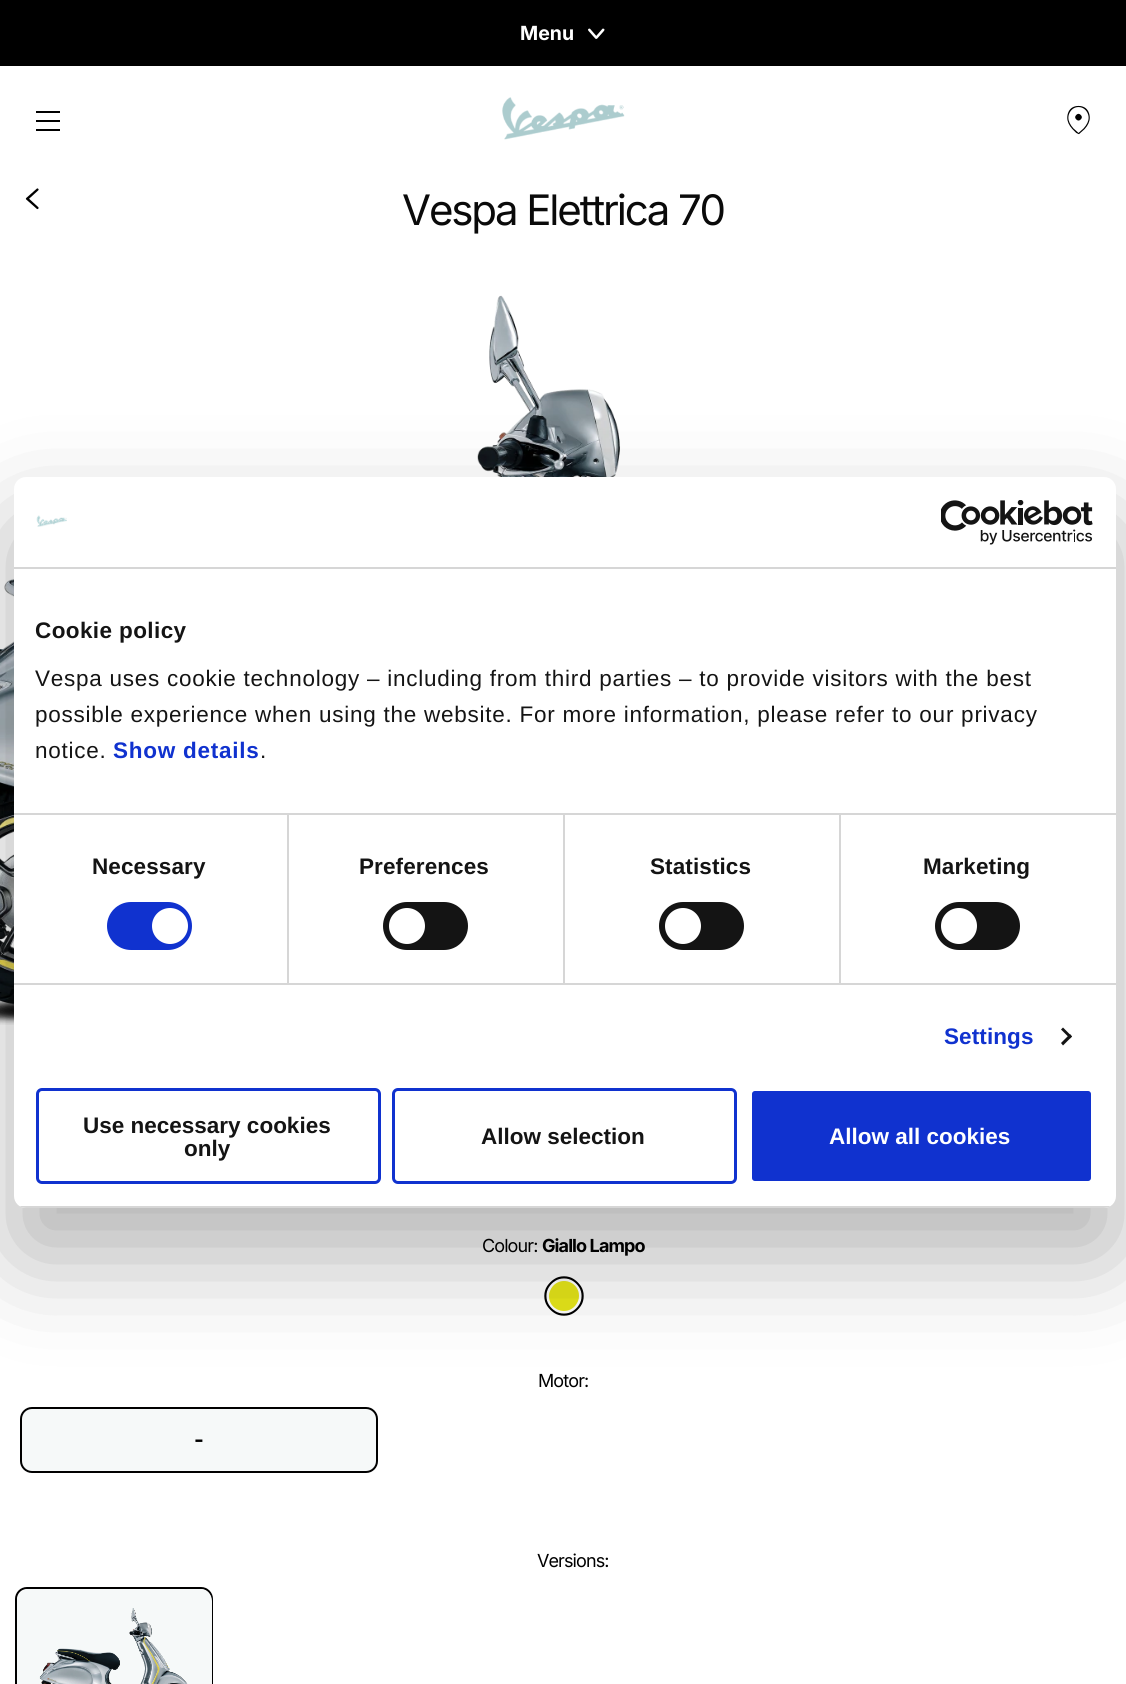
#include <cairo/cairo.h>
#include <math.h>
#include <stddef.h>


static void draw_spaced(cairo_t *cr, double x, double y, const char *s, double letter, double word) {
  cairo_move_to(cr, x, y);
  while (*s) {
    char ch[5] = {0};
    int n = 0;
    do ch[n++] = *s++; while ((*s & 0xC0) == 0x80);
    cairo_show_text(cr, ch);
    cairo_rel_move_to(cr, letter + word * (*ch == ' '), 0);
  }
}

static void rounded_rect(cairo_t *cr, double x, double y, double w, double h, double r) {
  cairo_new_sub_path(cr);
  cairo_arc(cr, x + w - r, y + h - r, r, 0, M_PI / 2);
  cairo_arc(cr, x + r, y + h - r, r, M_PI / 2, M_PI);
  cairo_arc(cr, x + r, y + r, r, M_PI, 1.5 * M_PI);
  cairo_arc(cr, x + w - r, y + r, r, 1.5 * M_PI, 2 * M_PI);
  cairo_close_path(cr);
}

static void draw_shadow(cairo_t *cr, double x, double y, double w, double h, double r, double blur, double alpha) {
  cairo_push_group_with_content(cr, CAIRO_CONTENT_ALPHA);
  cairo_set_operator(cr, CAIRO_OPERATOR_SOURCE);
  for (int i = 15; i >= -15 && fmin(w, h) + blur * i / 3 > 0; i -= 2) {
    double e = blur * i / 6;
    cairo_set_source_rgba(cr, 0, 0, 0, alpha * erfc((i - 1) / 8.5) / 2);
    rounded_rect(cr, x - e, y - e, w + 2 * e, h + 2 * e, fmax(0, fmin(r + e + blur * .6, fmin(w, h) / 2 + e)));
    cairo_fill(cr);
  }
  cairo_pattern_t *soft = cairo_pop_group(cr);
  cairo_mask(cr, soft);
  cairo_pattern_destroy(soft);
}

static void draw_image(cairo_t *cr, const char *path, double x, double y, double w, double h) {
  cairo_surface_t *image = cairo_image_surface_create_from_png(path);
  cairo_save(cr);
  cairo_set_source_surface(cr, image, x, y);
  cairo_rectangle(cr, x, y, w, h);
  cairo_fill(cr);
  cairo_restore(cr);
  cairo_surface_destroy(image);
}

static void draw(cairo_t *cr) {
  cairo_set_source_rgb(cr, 1, 1, 1);
  cairo_paint(cr);
  cairo_set_source_rgb(cr, 0, 0, 0);
  cairo_rectangle(cr, 0, 0, 1126, 66);
  cairo_fill(cr);
  draw_image(cr, "images/1.png", 588, 28, 17, 11);
  cairo_rectangle(cr, 36, 120, 24, 2);
  cairo_fill(cr);
  cairo_rectangle(cr, 36, 111, 24, 2);
  cairo_fill(cr);
  cairo_rectangle(cr, 36, 129, 24, 2);
  cairo_fill(cr);
  draw_image(cr, "images/2.png", 502, 97, 123, 43);
  draw_image(cr, "images/3.png", 1067, 105, 23, 30);
  draw_image(cr, "images/4.png", 25, 188, 14, 22);
  draw_image(cr, "images/5.png", 0, 295, 621, 730);
  cairo_set_source_rgb(cr, 1, 1, 0);
  cairo_new_path(cr);
  cairo_move_to(cr, 549, 1296);
  cairo_curve_to(cr, 549, 1310, 566, 1316, 575, 1306);
  cairo_curve_to(cr, 577.5, 1303, 579, 1299.5, 579, 1296);
  cairo_curve_to(cr, 579, 1282, 562, 1276, 553, 1286);
  cairo_curve_to(cr, 550.5, 1289, 549, 1292.5, 549, 1296);
  cairo_close_path(cr);
  cairo_fill(cr);
  cairo_set_source_rgba(cr, 128 / 255.0, 128 / 255.0, 128 / 255.0, 0.2);
  cairo_new_path(cr);
  cairo_move_to(cr, 549, 1296);
  cairo_curve_to(cr, 549, 1310, 566, 1316, 575, 1306);
  cairo_curve_to(cr, 577.5, 1303, 579, 1299.5, 579, 1296);
  cairo_curve_to(cr, 579, 1282, 562, 1276, 553, 1286);
  cairo_curve_to(cr, 550.5, 1289, 549, 1292.5, 549, 1296);
  cairo_close_path(cr);
  cairo_fill(cr);
  draw_image(cr, "images/6.png", 544, 1276, 40, 40);
  draw_image(cr, "images/7.png", 544, 1276, 40, 40);
  cairo_set_source_rgb(cr, 246 / 255.0, 249 / 255.0, 249 / 255.0);
  rounded_rect(cr, 21, 1408, 356, 64, 11);
  cairo_fill_preserve(cr);
  cairo_set_source_rgb(cr, 0, 0, 0);
  cairo_stroke(cr);
  rounded_rect(cr, 16, 1588, 196, 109, 11);
  cairo_stroke(cr);
  cairo_set_source_rgb(cr, 246 / 255.0, 249 / 255.0, 249 / 255.0);
  rounded_rect(cr, 17, 1589, 195, 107, 12);
  cairo_fill(cr);
  draw_image(cr, "images/8.png", 39, 1608, 149, 76);
  cairo_set_source_rgb(cr, 0, 0, 0);
  draw_shadow(cr, 14, 525, 1102, 731, 12, 51, 0.3);
  cairo_set_source_rgb(cr, 1, 1, 1);
  rounded_rect(cr, 14, 477, 1102, 731, 12);
  cairo_fill(cr);
  cairo_set_source_rgb(cr, 214 / 255.0, 214 / 255.0, 214 / 255.0);
  cairo_rectangle(cr, 14, 567, 1102, 2);
  cairo_fill(cr);
  draw_image(cr, "images/9.png", 36, 515, 31, 12);
  draw_image(cr, "images/10.png", 941, 500, 152, 45);
  cairo_rectangle(cr, 14, 813, 1102, 2);
  cairo_fill(cr);
  cairo_rectangle(cr, 14, 983, 1102, 2);
  cairo_fill(cr);
  cairo_rectangle(cr, 287, 815, 2, 168);
  cairo_fill(cr);
  cairo_set_source_rgb(cr, 16 / 255.0, 50 / 255.0, 207 / 255.0);
  rounded_rect(cr, 107, 902, 85, 48, 24);
  cairo_fill(cr);
  cairo_set_source_rgb(cr, 1, 1, 1);
  cairo_arc(cr, 170, 926, 18, 0, 2 * M_PI);
  cairo_fill(cr);
  cairo_set_source_rgb(cr, 214 / 255.0, 214 / 255.0, 214 / 255.0);
  cairo_rectangle(cr, 563, 815, 2, 168);
  cairo_fill(cr);
  cairo_set_source_rgb(cr, 20 / 255.0, 20 / 255.0, 20 / 255.0);
  rounded_rect(cr, 383, 902, 85, 48, 24);
  cairo_fill(cr);
  cairo_set_source_rgb(cr, 1, 1, 1);
  cairo_arc(cr, 407, 926, 18, 0, 2 * M_PI);
  cairo_fill(cr);
  cairo_set_source_rgb(cr, 214 / 255.0, 214 / 255.0, 214 / 255.0);
  cairo_rectangle(cr, 839, 815, 2, 168);
  cairo_fill(cr);
  cairo_set_source_rgb(cr, 20 / 255.0, 20 / 255.0, 20 / 255.0);
  rounded_rect(cr, 659, 902, 85, 48, 24);
  cairo_fill(cr);
  cairo_set_source_rgb(cr, 1, 1, 1);
  cairo_arc(cr, 683, 926, 18, 0, 2 * M_PI);
  cairo_fill(cr);
  cairo_set_source_rgb(cr, 20 / 255.0, 20 / 255.0, 20 / 255.0);
  rounded_rect(cr, 935, 902, 85, 48, 24);
  cairo_fill(cr);
  cairo_set_source_rgb(cr, 1, 1, 1);
  cairo_arc(cr, 959, 926, 18, 0, 2 * M_PI);
  cairo_fill(cr);
  cairo_set_source_rgb(cr, 20 / 255.0, 20 / 255.0, 20 / 255.0);
  cairo_new_path(cr);
  cairo_move_to(cr, 1063, 1027.5);
  cairo_line_to(cr, 1072, 1036.5);
  cairo_line_to(cr, 1070, 1038.5);
  cairo_line_to(cr, 1061, 1029.5);
  cairo_close_path(cr);
  cairo_fill(cr);
  cairo_new_path(cr);
  cairo_move_to(cr, 1070, 1034);
  cairo_line_to(cr, 1072, 1036.5);
  cairo_line_to(cr, 1063, 1045.5);
  cairo_line_to(cr, 1061, 1043);
  cairo_close_path(cr);
  cairo_fill(cr);
  cairo_save(cr);
  rounded_rect(cr, 14, 477, 1102, 731, 12);
  cairo_clip(cr);
  cairo_set_source_rgb(cr, 214 / 255.0, 214 / 255.0, 214 / 255.0);
  cairo_rectangle(cr, 14, 1206, 1102, 2);
  cairo_fill(cr);
  cairo_restore(cr);
  rounded_rect(cr, 37.5, 1089.5, 342, 93, 4.5);
  cairo_set_source_rgb(cr, 16 / 255.0, 50 / 255.0, 207 / 255.0);
  cairo_set_line_width(cr, 3);
  cairo_stroke(cr);
  rounded_rect(cr, 393.5, 1089.5, 342, 93, 4.5);
  cairo_stroke(cr);
  rounded_rect(cr, 750.5, 1089.5, 342, 93, 4.5);
  cairo_fill_preserve(cr);
  cairo_set_source_rgb(cr, 1, 1, 1);
  cairo_stroke(cr);
  cairo_select_font_face(cr, "Inter", CAIRO_FONT_SLANT_NORMAL, CAIRO_FONT_WEIGHT_BOLD);
  cairo_set_font_size(cr, 19.5);
  cairo_move_to(cr, 520, 40);
  cairo_show_text(cr, "Menu");
  cairo_select_font_face(cr, "Inter", CAIRO_FONT_SLANT_NORMAL, CAIRO_FONT_WEIGHT_NORMAL);
  cairo_set_font_size(cr, 42);
  cairo_set_source_rgb(cr, 10 / 255.0, 10 / 255.0, 10 / 255.0);
  draw_spaced(cr, 402, 225, "Vespa Elettrica 70", -2.1, 0);
  cairo_set_font_size(cr, 18);
  cairo_set_source_rgb(cr, 0, 0, 0);
  draw_spaced(cr, 482, 1252, "Colour:", -0.9, 0);
  cairo_select_font_face(cr, "Inter", CAIRO_FONT_SLANT_NORMAL, CAIRO_FONT_WEIGHT_BOLD);
  draw_spaced(cr, 542, 1252, "Giallo Lampo", -0.9, 0);
  cairo_select_font_face(cr, "Inter", CAIRO_FONT_SLANT_NORMAL, CAIRO_FONT_WEIGHT_NORMAL);
  draw_spaced(cr, 538, 1387, "Motor:", -0.9, 0);
  cairo_select_font_face(cr, "Inter", CAIRO_FONT_SLANT_NORMAL, CAIRO_FONT_WEIGHT_BOLD);
  cairo_set_font_size(cr, 21);
  draw_spaced(cr, 194, 1447, "-", -1, 0);
  cairo_select_font_face(cr, "Inter", CAIRO_FONT_SLANT_NORMAL, CAIRO_FONT_WEIGHT_NORMAL);
  cairo_set_font_size(cr, 18);
  draw_spaced(cr, 537, 1567, "Versions:", -0.9, 0);
  cairo_select_font_face(cr, "Liberation Sans", CAIRO_FONT_SLANT_NORMAL, CAIRO_FONT_WEIGHT_BOLD);
  cairo_set_font_size(cr, 22.5);
  cairo_set_source_rgb(cr, 20 / 255.0, 20 / 255.0, 20 / 255.0);
  draw_spaced(cr, 35, 638, "Cookie policy", 0.4, 0);
  cairo_select_font_face(cr, "Liberation Sans", CAIRO_FONT_SLANT_NORMAL, CAIRO_FONT_WEIGHT_NORMAL);
  draw_spaced(cr, 35, 686, "Vespa uses cookie technology – including from third parties – to provide visitors with the best", 0.75, 0);
  draw_spaced(cr, 35, 722, "possible experience when using the website. For more information, please refer to our privacy", 0.75, 0);
  draw_spaced(cr, 35, 758, "notice.", 0.75, 0);
  cairo_select_font_face(cr, "Liberation Sans", CAIRO_FONT_SLANT_NORMAL, CAIRO_FONT_WEIGHT_BOLD);
  cairo_set_source_rgb(cr, 16 / 255.0, 50 / 255.0, 207 / 255.0);
  draw_spaced(cr, 113, 758, "Show details", 0.75, 0);
  cairo_select_font_face(cr, "Liberation Sans", CAIRO_FONT_SLANT_NORMAL, CAIRO_FONT_WEIGHT_NORMAL);
  cairo_set_source_rgb(cr, 20 / 255.0, 20 / 255.0, 20 / 255.0);
  draw_spaced(cr, 260, 758, ".", 0.75, 0);
  cairo_select_font_face(cr, "Liberation Sans", CAIRO_FONT_SLANT_NORMAL, CAIRO_FONT_WEIGHT_BOLD);
  draw_spaced(cr, 92, 874, "Necessary", 0.1, 0);
  draw_spaced(cr, 359, 874, "Preferences", 0.1, 0);
  draw_spaced(cr, 650, 874, "Statistics", 0.1, 0);
  draw_spaced(cr, 923, 874, "Marketing", 0.1, 0);
  cairo_set_source_rgb(cr, 16 / 255.0, 50 / 255.0, 207 / 255.0);
  draw_spaced(cr, 944, 1044, "Settings", 0.1, 0);
  cairo_set_source_rgb(cr, 20 / 255.0, 20 / 255.0, 20 / 255.0);
  cairo_move_to(cr, 83, 1133);
  cairo_show_text(cr, "Use necessary cookies");
  cairo_move_to(cr, 184, 1156);
  cairo_show_text(cr, "only");
  cairo_move_to(cr, 481, 1144);
  cairo_show_text(cr, "Allow selection");
  cairo_set_source_rgb(cr, 1, 1, 1);
  cairo_move_to(cr, 829, 1144);
  cairo_show_text(cr, "Allow all cookies");
}

int main(void) {
  cairo_surface_t *surface = cairo_image_surface_create(CAIRO_FORMAT_RGB24, 1126, 1684);
  cairo_t *cr = cairo_create(surface);
  cairo_font_options_t *options = cairo_font_options_create();
  cairo_font_options_set_hint_metrics(options, CAIRO_HINT_METRICS_OFF);
  cairo_font_options_set_hint_style(options, CAIRO_HINT_STYLE_NONE);
  cairo_set_font_options(cr, options);
  cairo_set_miter_limit(cr, 4);
  draw(cr);
  cairo_surface_write_to_png(surface, "out.png");
  cairo_font_options_destroy(options);
  cairo_destroy(cr);
  cairo_surface_destroy(surface);
  return 0;
}
